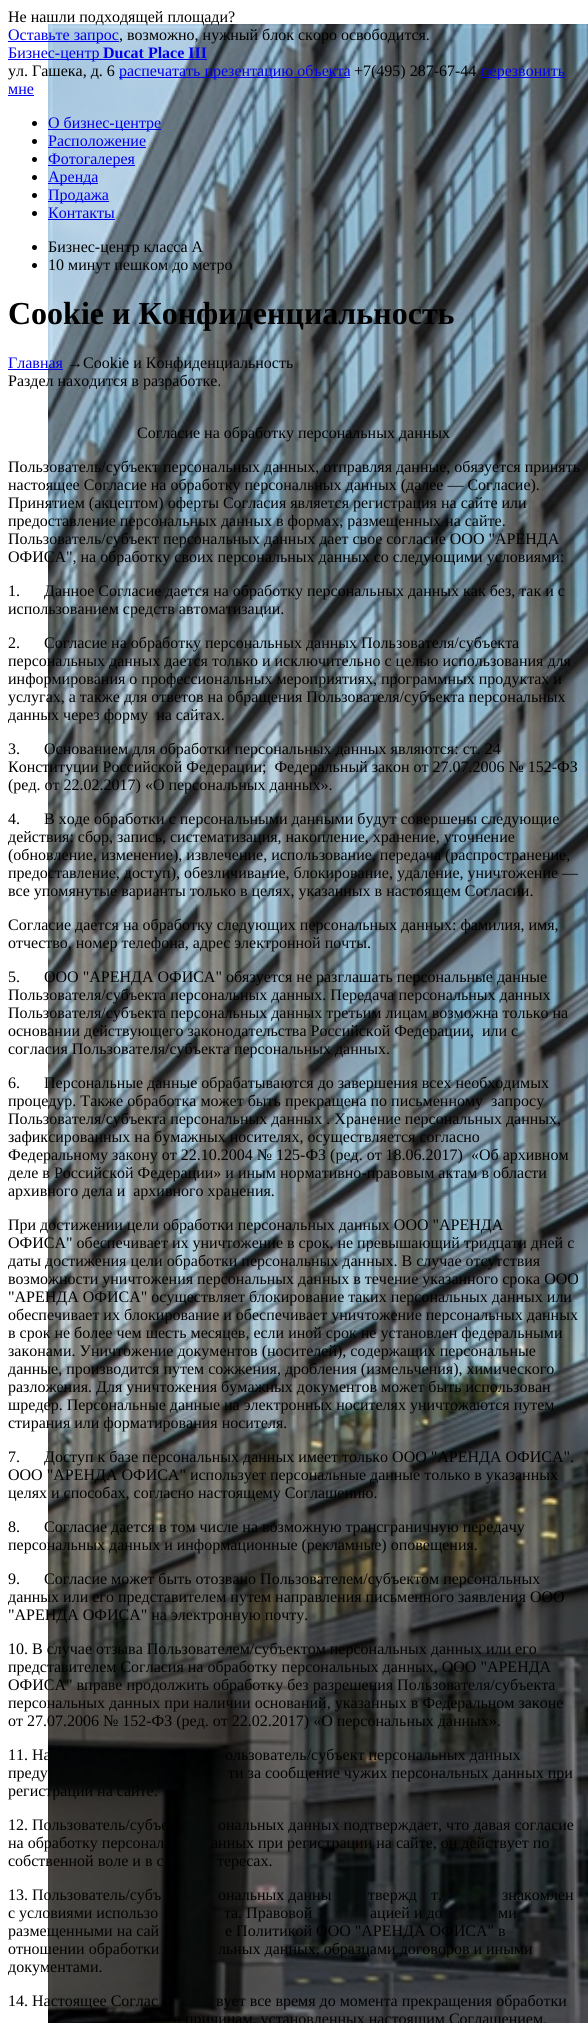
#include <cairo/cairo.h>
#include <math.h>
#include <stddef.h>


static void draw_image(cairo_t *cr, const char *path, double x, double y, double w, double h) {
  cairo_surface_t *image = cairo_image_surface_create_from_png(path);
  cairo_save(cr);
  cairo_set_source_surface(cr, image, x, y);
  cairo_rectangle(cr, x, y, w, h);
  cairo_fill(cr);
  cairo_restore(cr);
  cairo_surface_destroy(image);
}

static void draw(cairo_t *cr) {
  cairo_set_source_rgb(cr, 1, 1, 1);
  cairo_paint(cr);
  draw_image(cr, "images/1.png", 48, 24, 540, 1999);
  cairo_set_source_rgb(cr, 0, 0, 238 / 255.0);
  cairo_rectangle(cr, 8, 41, 111, 1);
  cairo_fill(cr);
  cairo_rectangle(cr, 8, 59, 199, 1);
  cairo_fill(cr);
  cairo_rectangle(cr, 119, 77, 231, 1);
  cairo_fill(cr);
  cairo_rectangle(cr, 481, 77, 84, 1);
  cairo_fill(cr);
  cairo_rectangle(cr, 8, 95, 26, 1);
  cairo_fill(cr);
  cairo_set_source_rgb(cr, 0, 0, 0);
  cairo_arc(cr, 34.5, 123.5, 2.5, 0, 2 * M_PI);
  cairo_fill(cr);
  cairo_set_source_rgb(cr, 0, 0, 238 / 255.0);
  cairo_rectangle(cr, 48, 129, 113, 1);
  cairo_fill(cr);
  cairo_set_source_rgb(cr, 0, 0, 0);
  cairo_arc(cr, 34.5, 141.5, 2.5, 0, 2 * M_PI);
  cairo_fill(cr);
  cairo_set_source_rgb(cr, 0, 0, 238 / 255.0);
  cairo_rectangle(cr, 48, 147, 98, 1);
  cairo_fill(cr);
  cairo_set_source_rgb(cr, 0, 0, 0);
  cairo_arc(cr, 34.5, 159.5, 2.5, 0, 2 * M_PI);
  cairo_fill(cr);
  cairo_set_source_rgb(cr, 0, 0, 238 / 255.0);
  cairo_rectangle(cr, 48, 165, 87, 1);
  cairo_fill(cr);
  cairo_set_source_rgb(cr, 0, 0, 0);
  cairo_arc(cr, 34.5, 177.5, 2.5, 0, 2 * M_PI);
  cairo_fill(cr);
  cairo_set_source_rgb(cr, 0, 0, 238 / 255.0);
  cairo_rectangle(cr, 48, 183, 50, 1);
  cairo_fill(cr);
  cairo_set_source_rgb(cr, 0, 0, 0);
  cairo_arc(cr, 34.5, 195.5, 2.5, 0, 2 * M_PI);
  cairo_fill(cr);
  cairo_set_source_rgb(cr, 0, 0, 238 / 255.0);
  cairo_rectangle(cr, 48, 201, 61, 1);
  cairo_fill(cr);
  cairo_set_source_rgb(cr, 0, 0, 0);
  cairo_arc(cr, 34.5, 213.5, 2.5, 0, 2 * M_PI);
  cairo_fill(cr);
  cairo_set_source_rgb(cr, 0, 0, 238 / 255.0);
  cairo_rectangle(cr, 48, 219, 67, 1);
  cairo_fill(cr);
  cairo_set_source_rgb(cr, 0, 0, 0);
  cairo_arc(cr, 34.5, 247.5, 2.5, 0, 2 * M_PI);
  cairo_fill(cr);
  cairo_arc(cr, 34.5, 265.5, 2.5, 0, 2 * M_PI);
  cairo_fill(cr);
  cairo_set_source_rgb(cr, 0, 0, 238 / 255.0);
  cairo_rectangle(cr, 8, 369, 55, 1);
  cairo_fill(cr);
  cairo_select_font_face(cr, "Liberation Serif", CAIRO_FONT_SLANT_NORMAL, CAIRO_FONT_WEIGHT_NORMAL);
  cairo_set_font_size(cr, 16);
  cairo_set_source_rgb(cr, 0, 0, 0);
  cairo_move_to(cr, 8, 22);
  cairo_show_text(cr, "Не нашли подходящей площади?");
  cairo_set_source_rgb(cr, 0, 0, 238 / 255.0);
  cairo_move_to(cr, 8, 40);
  cairo_show_text(cr, "Оставьте запрос");
  cairo_set_source_rgb(cr, 0, 0, 0);
  cairo_move_to(cr, 119, 40);
  cairo_show_text(cr, ", возможно, нужный блок скоро освободится.");
  cairo_set_source_rgb(cr, 0, 0, 238 / 255.0);
  cairo_move_to(cr, 8, 58);
  cairo_show_text(cr, "Бизнес-центр");
  cairo_select_font_face(cr, "Liberation Serif", CAIRO_FONT_SLANT_NORMAL, CAIRO_FONT_WEIGHT_BOLD);
  cairo_move_to(cr, 103, 58);
  cairo_show_text(cr, "Ducat Place III");
  cairo_select_font_face(cr, "Liberation Serif", CAIRO_FONT_SLANT_NORMAL, CAIRO_FONT_WEIGHT_NORMAL);
  cairo_set_source_rgb(cr, 0, 0, 0);
  cairo_move_to(cr, 8, 76);
  cairo_show_text(cr, "ул. Гашека, д. 6");
  cairo_set_source_rgb(cr, 0, 0, 238 / 255.0);
  cairo_move_to(cr, 119, 76);
  cairo_show_text(cr, "распечатать презентацию объекта");
  cairo_set_source_rgb(cr, 0, 0, 0);
  cairo_move_to(cr, 354, 76);
  cairo_show_text(cr, "+7(495) 287-67-44");
  cairo_set_source_rgb(cr, 0, 0, 238 / 255.0);
  cairo_move_to(cr, 481, 76);
  cairo_show_text(cr, "перезвонить");
  cairo_move_to(cr, 8, 94);
  cairo_show_text(cr, "мне");
  cairo_move_to(cr, 48, 128);
  cairo_show_text(cr, "О бизнес-центре");
  cairo_move_to(cr, 48, 146);
  cairo_show_text(cr, "Расположение");
  cairo_move_to(cr, 48, 164);
  cairo_show_text(cr, "Фотогалерея");
  cairo_move_to(cr, 48, 182);
  cairo_show_text(cr, "Аренда");
  cairo_move_to(cr, 48, 200);
  cairo_show_text(cr, "Продажа");
  cairo_move_to(cr, 48, 218);
  cairo_show_text(cr, "Контакты");
  cairo_set_source_rgb(cr, 0, 0, 0);
  cairo_move_to(cr, 48, 252);
  cairo_show_text(cr, "Бизнес-центр класса А");
  cairo_move_to(cr, 48, 270);
  cairo_show_text(cr, "10 минут пешком до метро");
  cairo_select_font_face(cr, "Liberation Serif", CAIRO_FONT_SLANT_NORMAL, CAIRO_FONT_WEIGHT_BOLD);
  cairo_set_font_size(cr, 32);
  cairo_move_to(cr, 8, 324);
  cairo_show_text(cr, "Cookie и Конфиденциальность");
  cairo_select_font_face(cr, "Liberation Serif", CAIRO_FONT_SLANT_NORMAL, CAIRO_FONT_WEIGHT_NORMAL);
  cairo_set_font_size(cr, 16);
  cairo_set_source_rgb(cr, 0, 0, 238 / 255.0);
  cairo_move_to(cr, 8, 368);
  cairo_show_text(cr, "Главная");
  cairo_set_source_rgb(cr, 0, 0, 0);
  cairo_move_to(cr, 67, 368);
  cairo_show_text(cr, "→Cookie и Конфиденциальность");
  cairo_move_to(cr, 8, 386);
  cairo_show_text(cr, "Раздел находится в разработке.");
  cairo_move_to(cr, 137, 438);
  cairo_show_text(cr, "Согласие на обработку персональных данных");
  cairo_move_to(cr, 8, 472);
  cairo_show_text(cr, "Пользователь/субъект персональных данных, отправляя данные, обязуется принять");
  cairo_move_to(cr, 8, 490);
  cairo_show_text(cr, "настоящее Согласие на обработку персональных данных (далее — Согласие).");
  cairo_move_to(cr, 8, 508);
  cairo_show_text(cr, "Принятием (акцептом) оферты Согласия является регистрация на сайте или");
  cairo_move_to(cr, 8, 526);
  cairo_show_text(cr, "предоставление персональных данных в формах, размещенных на сайте.");
  cairo_move_to(cr, 8, 544);
  cairo_show_text(cr, "Пользователь/субъект персональных данных дает свое согласие ООО \"АРЕНДА");
  cairo_move_to(cr, 8, 562);
  cairo_show_text(cr, "ОФИСА\", на обработку своих персональных данных со следующими условиями:");
  cairo_move_to(cr, 8, 596);
  cairo_show_text(cr, "1.      Данное Согласие дается на обработку персональных данных как без, так и с");
  cairo_move_to(cr, 8, 614);
  cairo_show_text(cr, "использованием средств автоматизации.");
  cairo_move_to(cr, 8, 648);
  cairo_show_text(cr, "2.      Согласие на обработку персональных данных Пользователя/субъекта");
  cairo_move_to(cr, 8, 666);
  cairo_show_text(cr, "персональных данных дается только и исключительно с целью использования для");
  cairo_move_to(cr, 8, 684);
  cairo_show_text(cr, "информирования о профессиональных мероприятиях, программных продуктах и");
  cairo_move_to(cr, 8, 702);
  cairo_show_text(cr, "услугах, а также для ответов на обращения Пользователя/субъекта персональных");
  cairo_move_to(cr, 8, 720);
  cairo_show_text(cr, "данных через форму  на сайтах.");
  cairo_move_to(cr, 8, 754);
  cairo_show_text(cr, "3.      Основанием для обработки персональных данных являются: ст. 24");
  cairo_move_to(cr, 8, 772);
  cairo_show_text(cr, "Конституции Российской Федерации;  Федеральный закон от 27.07.2006 № 152-ФЗ");
  cairo_move_to(cr, 8, 790);
  cairo_show_text(cr, "(ред. от 22.02.2017) «О персональных данных».");
  cairo_move_to(cr, 8, 824);
  cairo_show_text(cr, "4.      В ходе обработки с персональными данными будут совершены следующие");
  cairo_move_to(cr, 8, 842);
  cairo_show_text(cr, "действия: сбор, запись, систематизация, накопление, хранение, уточнение");
  cairo_move_to(cr, 8, 860);
  cairo_show_text(cr, "(обновление, изменение), извлечение, использование, передача (распространение,");
  cairo_move_to(cr, 8, 878);
  cairo_show_text(cr, "предоставление, доступ), обезличивание, блокирование, удаление, уничтожение —");
  cairo_move_to(cr, 8, 896);
  cairo_show_text(cr, "все упомянутые варианты только в целях, указанных в настоящем Согласии.");
  cairo_move_to(cr, 8, 930);
  cairo_show_text(cr, "Согласие дается на обработку следующих персональных данных: фамилия, имя,");
  cairo_move_to(cr, 8, 948);
  cairo_show_text(cr, "отчество, номер телефона, адрес электронной почты.");
  cairo_move_to(cr, 8, 982);
  cairo_show_text(cr, "5.      ООО \"АРЕНДА ОФИСА\" обязуется не разглашать персональные данные");
  cairo_move_to(cr, 8, 1000);
  cairo_show_text(cr, "Пользователя/субъекта персональных данных. Передача персональных данных");
  cairo_move_to(cr, 8, 1018);
  cairo_show_text(cr, "Пользователя/субъекта персональных данных третьим лицам возможна только на");
  cairo_move_to(cr, 8, 1036);
  cairo_show_text(cr, "основании действующего законодательства Российской Федерации,  или с");
  cairo_move_to(cr, 8, 1054);
  cairo_show_text(cr, "согласия Пользователя/субъекта персональных данных.");
  cairo_move_to(cr, 8, 1088);
  cairo_show_text(cr, "6.      Персональные данные обрабатываются до завершения всех необходимых");
  cairo_move_to(cr, 8, 1106);
  cairo_show_text(cr, "процедур. Также обработка может быть прекращена по письменному  запросу");
  cairo_move_to(cr, 8, 1124);
  cairo_show_text(cr, "Пользователя/субъекта персональных данных . Хранение персональных данных,");
  cairo_move_to(cr, 8, 1142);
  cairo_show_text(cr, "зафиксированных на бумажных носителях, осуществляется согласно");
  cairo_move_to(cr, 8, 1160);
  cairo_show_text(cr, "Федеральному закону от 22.10.2004 № 125-ФЗ (ред. от 18.06.2017)  «Об архивном");
  cairo_move_to(cr, 8, 1178);
  cairo_show_text(cr, "деле в Российской Федерации» и иным нормативно-правовым актам в области");
  cairo_move_to(cr, 8, 1196);
  cairo_show_text(cr, "архивного дела и  архивного хранения.");
  cairo_move_to(cr, 8, 1230);
  cairo_show_text(cr, "При достижении цели обработки персональных данных ООО \"АРЕНДА");
  cairo_move_to(cr, 8, 1248);
  cairo_show_text(cr, "ОФИСА\" обеспечивает их уничтожение в срок, не превышающий тридцати дней с");
  cairo_move_to(cr, 8, 1266);
  cairo_show_text(cr, "даты достижения цели обработки персональных данных. В случае отсутствия");
  cairo_move_to(cr, 8, 1284);
  cairo_show_text(cr, "возможности уничтожения персональных данных в течение указанного срока ООО");
  cairo_move_to(cr, 8, 1302);
  cairo_show_text(cr, "\"АРЕНДА ОФИСА\" осуществляет блокирование таких персональных данных или");
  cairo_move_to(cr, 8, 1320);
  cairo_show_text(cr, "обеспечивает их блокирование и обеспечивает уничтожение персональных данных");
  cairo_move_to(cr, 8, 1338);
  cairo_show_text(cr, "в срок не более чем шесть месяцев, если иной срок не установлен федеральными");
  cairo_move_to(cr, 8, 1356);
  cairo_show_text(cr, "законами. Уничтожение документов (носителей), содержащих персональные");
  cairo_move_to(cr, 8, 1374);
  cairo_show_text(cr, "данные, производится путем сожжения, дробления (измельчения), химического");
  cairo_move_to(cr, 8, 1392);
  cairo_show_text(cr, "разложения. Для уничтожения бумажных документов может быть использован");
  cairo_move_to(cr, 8, 1410);
  cairo_show_text(cr, "шредер. Персональные данные на электронных носителях уничтожаются путем");
  cairo_move_to(cr, 8, 1428);
  cairo_show_text(cr, "стирания или форматирования носителя.");
  cairo_move_to(cr, 8, 1462);
  cairo_show_text(cr, "7.      Доступ к базе персональных данных имеет только ООО \"АРЕНДА ОФИСА\".");
  cairo_move_to(cr, 8, 1480);
  cairo_show_text(cr, "ООО \"АРЕНДА ОФИСА\" использует персональные данные только в указанных");
  cairo_move_to(cr, 8, 1498);
  cairo_show_text(cr, "целях и способах, согласно настоящему Соглашению.");
  cairo_move_to(cr, 8, 1532);
  cairo_show_text(cr, "8.      Согласие дается в том числе на возможную трансграничную передачу");
  cairo_move_to(cr, 8, 1550);
  cairo_show_text(cr, "персональных данных и информационные (рекламные) оповещения.");
  cairo_move_to(cr, 8, 1584);
  cairo_show_text(cr, "9.      Согласие может быть отозвано Пользователем/субъектом персональных");
  cairo_move_to(cr, 8, 1602);
  cairo_show_text(cr, "данных или его представителем путем направления письменного заявления ООО");
  cairo_move_to(cr, 8, 1620);
  cairo_show_text(cr, "\"АРЕНДА ОФИСА\" на электронную почту.");
  cairo_move_to(cr, 8, 1654);
  cairo_show_text(cr, "10. В случае отзыва Пользователем/субъектом персональных данных или его");
  cairo_move_to(cr, 8, 1672);
  cairo_show_text(cr, "представителем Согласия на обработку персональных данных, ООО \"АРЕНДА");
  cairo_move_to(cr, 8, 1690);
  cairo_show_text(cr, "ОФИСА\" вправе продолжить обработку без разрешения Пользователя/субъекта");
  cairo_move_to(cr, 8, 1708);
  cairo_show_text(cr, "персональных данных при наличии оснований, указанных в Федеральном законе");
  cairo_move_to(cr, 8, 1726);
  cairo_show_text(cr, "от 27.07.2006 № 152-ФЗ (ред. от 22.02.2017) «О персональных данных».");
  cairo_move_to(cr, 8, 1760);
  cairo_show_text(cr, "11. На");
  cairo_move_to(cr, 225, 1760);
  cairo_show_text(cr, "ользователь/субъект персональных данных");
  cairo_move_to(cr, 8, 1778);
  cairo_show_text(cr, "преду");
  cairo_move_to(cr, 228, 1778);
  cairo_show_text(cr, "ти за сообщение чужих персональных данных при");
  cairo_move_to(cr, 8, 1796);
  cairo_show_text(cr, "регистрации на сайте.");
  cairo_move_to(cr, 8, 1830);
  cairo_show_text(cr, "12. Пользователь/субъе");
  cairo_move_to(cr, 218, 1830);
  cairo_show_text(cr, "ональных данных подтверждает, что давая согласие");
  cairo_move_to(cr, 8, 1848);
  cairo_show_text(cr, "на обработку персонал");
  cairo_move_to(cr, 211, 1848);
  cairo_show_text(cr, "анных при регистрации на сайте, он действует по");
  cairo_move_to(cr, 8, 1866);
  cairo_show_text(cr, "собственной воле и в с");
  cairo_move_to(cr, 217, 1866);
  cairo_show_text(cr, "тересах.");
  cairo_move_to(cr, 8, 1900);
  cairo_show_text(cr, "13. Пользователь/субъ");
  cairo_move_to(cr, 218, 1900);
  cairo_show_text(cr, "ональных данны");
  cairo_move_to(cr, 368, 1900);
  cairo_show_text(cr, "твержд");
  cairo_move_to(cr, 431, 1900);
  cairo_show_text(cr, "т,");
  cairo_move_to(cr, 502, 1900);
  cairo_show_text(cr, "знакомлен");
  cairo_move_to(cr, 8, 1918);
  cairo_show_text(cr, "с условиями использо");
  cairo_move_to(cr, 224, 1918);
  cairo_show_text(cr, "та. Правовой");
  cairo_move_to(cr, 370, 1918);
  cairo_show_text(cr, "ацией и до");
  cairo_move_to(cr, 498, 1918);
  cairo_show_text(cr, "ми");
  cairo_move_to(cr, 8, 1936);
  cairo_show_text(cr, "размещенными на сай");
  cairo_move_to(cr, 225, 1936);
  cairo_show_text(cr, "е Политикой ООО \"АРЕНДА ОФИСА\" в");
  cairo_move_to(cr, 8, 1954);
  cairo_show_text(cr, "отношении обработки");
  cairo_move_to(cr, 218, 1954);
  cairo_show_text(cr, "льных данных, образцами договоров и иными");
  cairo_move_to(cr, 8, 1972);
  cairo_show_text(cr, "документами.");
  cairo_move_to(cr, 8, 2006);
  cairo_show_text(cr, "14. Настоящее Соглас");
  cairo_move_to(cr, 216, 2006);
  cairo_show_text(cr, "вует все время до момента прекращения обработки");
  cairo_move_to(cr, 173, 2024);
  cairo_show_text(cr, "о причинам, установленных настоящим Соглашением.");
}

int main(void) {
  cairo_surface_t *surface = cairo_image_surface_create(CAIRO_FORMAT_RGB24, 588, 2023);
  cairo_t *cr = cairo_create(surface);
  cairo_font_options_t *options = cairo_font_options_create();
  cairo_font_options_set_hint_metrics(options, CAIRO_HINT_METRICS_OFF);
  cairo_font_options_set_hint_style(options, CAIRO_HINT_STYLE_NONE);
  cairo_set_font_options(cr, options);
  cairo_set_miter_limit(cr, 4);
  draw(cr);
  cairo_surface_write_to_png(surface, "out.png");
  cairo_font_options_destroy(options);
  cairo_destroy(cr);
  cairo_surface_destroy(surface);
  return 0;
}
